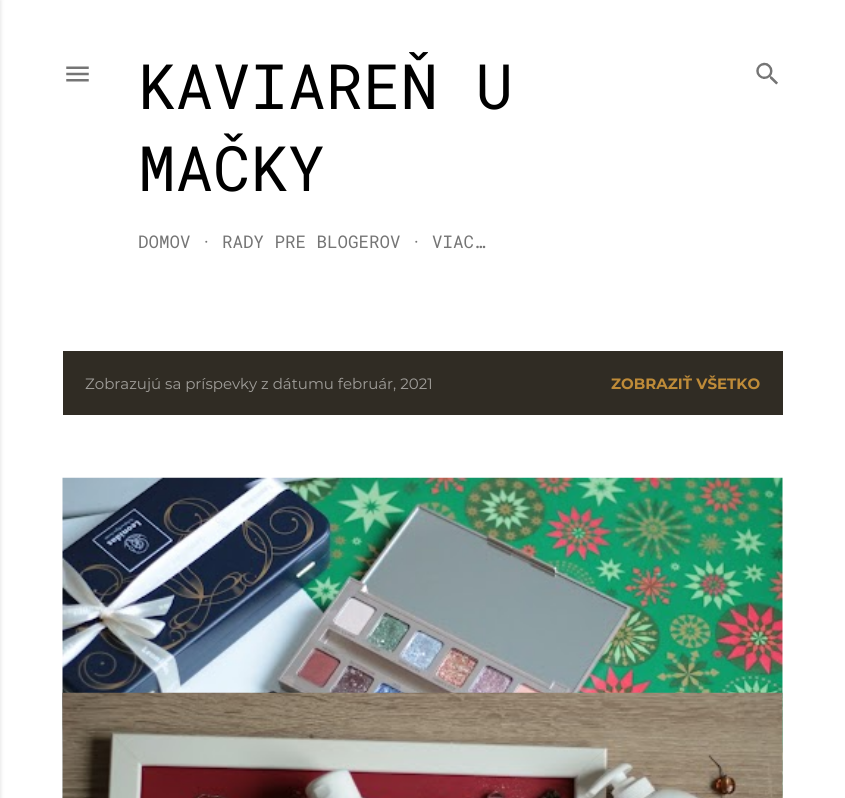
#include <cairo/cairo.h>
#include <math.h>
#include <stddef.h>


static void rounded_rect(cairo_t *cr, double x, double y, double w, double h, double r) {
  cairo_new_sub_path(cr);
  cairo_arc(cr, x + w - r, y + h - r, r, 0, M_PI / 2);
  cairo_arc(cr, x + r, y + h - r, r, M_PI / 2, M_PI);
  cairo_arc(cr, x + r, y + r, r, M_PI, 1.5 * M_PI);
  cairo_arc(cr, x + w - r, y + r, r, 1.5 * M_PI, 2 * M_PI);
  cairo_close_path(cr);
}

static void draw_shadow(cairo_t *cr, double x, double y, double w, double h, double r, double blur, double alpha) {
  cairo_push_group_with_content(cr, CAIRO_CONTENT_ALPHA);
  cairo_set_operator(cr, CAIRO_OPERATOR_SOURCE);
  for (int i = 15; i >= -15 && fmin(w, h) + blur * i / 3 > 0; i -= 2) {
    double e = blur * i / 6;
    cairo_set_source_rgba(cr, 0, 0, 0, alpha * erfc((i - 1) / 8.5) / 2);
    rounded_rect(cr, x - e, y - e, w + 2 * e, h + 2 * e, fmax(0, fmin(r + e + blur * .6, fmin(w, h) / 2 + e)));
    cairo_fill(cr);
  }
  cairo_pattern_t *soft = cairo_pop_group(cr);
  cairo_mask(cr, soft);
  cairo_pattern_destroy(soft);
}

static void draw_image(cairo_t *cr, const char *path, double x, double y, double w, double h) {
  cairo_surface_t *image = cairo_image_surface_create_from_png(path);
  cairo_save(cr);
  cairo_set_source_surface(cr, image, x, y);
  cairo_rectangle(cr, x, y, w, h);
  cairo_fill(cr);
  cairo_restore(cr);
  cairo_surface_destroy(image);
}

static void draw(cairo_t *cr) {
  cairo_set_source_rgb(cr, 1, 1, 1);
  cairo_paint(cr);
  cairo_set_source_rgb(cr, 0, 0, 0);
  draw_shadow(cr, -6, 0, 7, 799, 0, 2, 0.1);
  draw_image(cr, "images/1.png", 66, 66, 23, 16);
  draw_image(cr, "images/2.png", 756, 62, 22, 23);
  cairo_set_source_rgb(cr, 48 / 255.0, 44 / 255.0, 36 / 255.0);
  cairo_rectangle(cr, 63, 351, 720, 64);
  cairo_fill(cr);
  draw_image(cr, "images/3.png", 62, 477, 721, 321);
  draw_image(cr, "images/4.png", 62, 692, 721, 106);
  cairo_select_font_face(cr, "Roboto Mono", CAIRO_FONT_SLANT_NORMAL, CAIRO_FONT_WEIGHT_NORMAL);
  cairo_set_font_size(cr, 62.5);
  cairo_set_source_rgb(cr, 0, 0, 0);
  cairo_move_to(cr, 138, 109);
  cairo_show_text(cr, "KAVIAREŇ U");
  cairo_move_to(cr, 138, 191);
  cairo_show_text(cr, "MAČKY");
  cairo_set_font_size(cr, 17.5);
  cairo_set_source_rgb(cr, 117 / 255.0, 117 / 255.0, 117 / 255.0);
  cairo_move_to(cr, 138, 248);
  cairo_show_text(cr, "DOMOV · RADY PRE BLOGEROV · VIAC…");
  cairo_select_font_face(cr, "Montserrat", CAIRO_FONT_SLANT_NORMAL, CAIRO_FONT_WEIGHT_NORMAL);
  cairo_set_font_size(cr, 15);
  cairo_set_source_rgb(cr, 160 / 255.0, 158 / 255.0, 154 / 255.0);
  cairo_move_to(cr, 85, 389);
  cairo_show_text(cr, "Zobrazujú sa príspevky z dátumu február, 2021");
  cairo_select_font_face(cr, "Montserrat", CAIRO_FONT_SLANT_NORMAL, CAIRO_FONT_WEIGHT_BOLD);
  cairo_set_source_rgb(cr, 191 / 255.0, 139 / 255.0, 56 / 255.0);
  cairo_move_to(cr, 611, 389);
  cairo_show_text(cr, "ZOBRAZIŤ VŠETKO");
}

int main(void) {
  cairo_surface_t *surface = cairo_image_surface_create(CAIRO_FORMAT_RGB24, 845, 798);
  cairo_t *cr = cairo_create(surface);
  cairo_font_options_t *options = cairo_font_options_create();
  cairo_font_options_set_hint_metrics(options, CAIRO_HINT_METRICS_OFF);
  cairo_font_options_set_hint_style(options, CAIRO_HINT_STYLE_NONE);
  cairo_set_font_options(cr, options);
  cairo_set_miter_limit(cr, 4);
  draw(cr);
  cairo_surface_write_to_png(surface, "out.png");
  cairo_font_options_destroy(options);
  cairo_destroy(cr);
  cairo_surface_destroy(surface);
  return 0;
}
